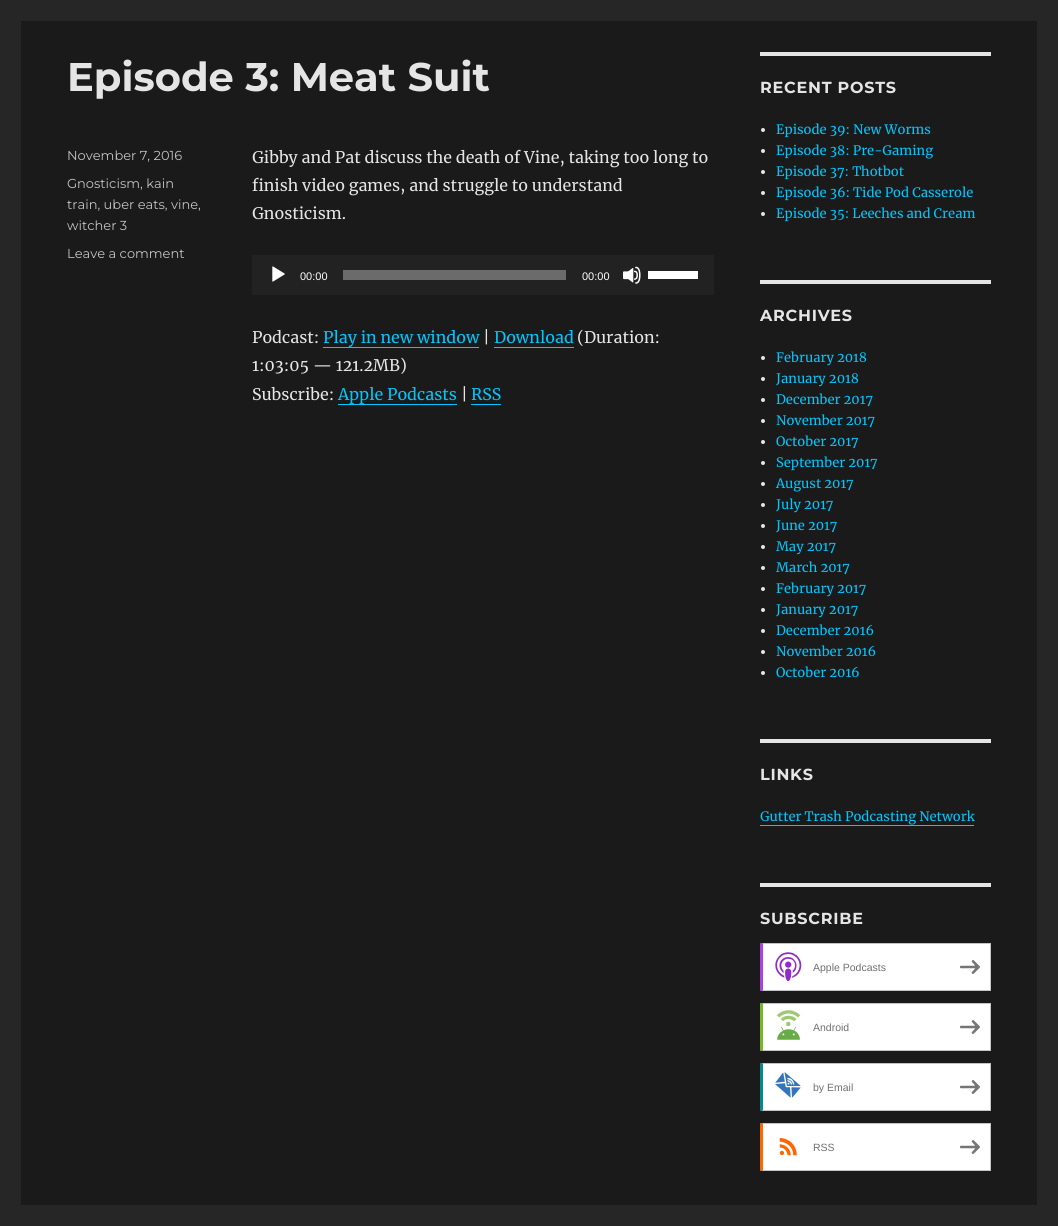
#include <cairo/cairo.h>
#include <math.h>
#include <stddef.h>


static void draw_spaced(cairo_t *cr, double x, double y, const char *s, double letter, double word) {
  cairo_move_to(cr, x, y);
  while (*s) {
    char ch[5] = {0};
    int n = 0;
    do ch[n++] = *s++; while ((*s & 0xC0) == 0x80);
    cairo_show_text(cr, ch);
    cairo_rel_move_to(cr, letter + word * (*ch == ' '), 0);
  }
}

static void draw_image(cairo_t *cr, const char *path, double x, double y, double w, double h) {
  cairo_surface_t *image = cairo_image_surface_create_from_png(path);
  cairo_save(cr);
  cairo_set_source_surface(cr, image, x, y);
  cairo_rectangle(cr, x, y, w, h);
  cairo_fill(cr);
  cairo_restore(cr);
  cairo_surface_destroy(image);
}

static void draw(cairo_t *cr) {
  cairo_set_source_rgb(cr, 38 / 255.0, 38 / 255.0, 38 / 255.0);
  cairo_paint(cr);
  cairo_set_source_rgb(cr, 26 / 255.0, 26 / 255.0, 26 / 255.0);
  cairo_rectangle(cr, 21, 21, 1016, 1184);
  cairo_fill(cr);
  cairo_set_source_rgb(cr, 34 / 255.0, 34 / 255.0, 34 / 255.0);
  cairo_rectangle(cr, 252, 255, 462, 40);
  cairo_fill(cr);
  draw_image(cr, "images/1.png", 272, 266, 13, 16);
  cairo_set_source_rgb(cr, 107 / 255.0, 107 / 255.0, 107 / 255.0);
  cairo_rectangle(cr, 343, 270, 223, 10);
  cairo_fill(cr);
  draw_image(cr, "images/2.png", 623, 266, 18, 18);
  cairo_set_source_rgb(cr, 1, 1, 1);
  cairo_rectangle(cr, 648, 271, 50, 8);
  cairo_fill(cr);
  cairo_set_source_rgb(cr, 0, 199 / 255.0, 1);
  cairo_rectangle(cr, 323, 347, 156, 1);
  cairo_fill(cr);
  cairo_rectangle(cr, 494, 347, 80, 1);
  cairo_fill(cr);
  cairo_rectangle(cr, 338, 404, 119, 1);
  cairo_fill(cr);
  cairo_rectangle(cr, 471, 404, 30, 1);
  cairo_fill(cr);
  cairo_set_source_rgb(cr, 229 / 255.0, 229 / 255.0, 229 / 255.0);
  cairo_rectangle(cr, 760, 52, 231, 4);
  cairo_fill(cr);
  cairo_arc(cr, 763, 130, 2, 0, 2 * M_PI);
  cairo_fill(cr);
  cairo_arc(cr, 763, 151, 2, 0, 2 * M_PI);
  cairo_fill(cr);
  cairo_arc(cr, 763, 172, 2, 0, 2 * M_PI);
  cairo_fill(cr);
  cairo_arc(cr, 763, 193, 2, 0, 2 * M_PI);
  cairo_fill(cr);
  cairo_arc(cr, 763, 214, 2, 0, 2 * M_PI);
  cairo_fill(cr);
  cairo_rectangle(cr, 760, 280, 231, 4);
  cairo_fill(cr);
  cairo_arc(cr, 763, 358, 2, 0, 2 * M_PI);
  cairo_fill(cr);
  cairo_arc(cr, 763, 379, 2, 0, 2 * M_PI);
  cairo_fill(cr);
  cairo_arc(cr, 763, 400, 2, 0, 2 * M_PI);
  cairo_fill(cr);
  cairo_arc(cr, 763, 421, 2, 0, 2 * M_PI);
  cairo_fill(cr);
  cairo_arc(cr, 763, 442, 2, 0, 2 * M_PI);
  cairo_fill(cr);
  cairo_arc(cr, 763, 463, 2, 0, 2 * M_PI);
  cairo_fill(cr);
  cairo_arc(cr, 763, 484, 2, 0, 2 * M_PI);
  cairo_fill(cr);
  cairo_arc(cr, 763, 505, 2, 0, 2 * M_PI);
  cairo_fill(cr);
  cairo_arc(cr, 763, 526, 2, 0, 2 * M_PI);
  cairo_fill(cr);
  cairo_arc(cr, 763, 547, 2, 0, 2 * M_PI);
  cairo_fill(cr);
  cairo_arc(cr, 763, 568, 2, 0, 2 * M_PI);
  cairo_fill(cr);
  cairo_arc(cr, 763, 589, 2, 0, 2 * M_PI);
  cairo_fill(cr);
  cairo_arc(cr, 763, 610, 2, 0, 2 * M_PI);
  cairo_fill(cr);
  cairo_arc(cr, 763, 631, 2, 0, 2 * M_PI);
  cairo_fill(cr);
  cairo_arc(cr, 763, 652, 2, 0, 2 * M_PI);
  cairo_fill(cr);
  cairo_arc(cr, 763, 673, 2, 0, 2 * M_PI);
  cairo_fill(cr);
  cairo_rectangle(cr, 760, 739, 231, 4);
  cairo_fill(cr);
  cairo_set_source_rgb(cr, 0, 199 / 255.0, 1);
  cairo_rectangle(cr, 760, 825, 214, 1);
  cairo_fill(cr);
  cairo_set_source_rgb(cr, 229 / 255.0, 229 / 255.0, 229 / 255.0);
  cairo_rectangle(cr, 760, 883, 231, 4);
  cairo_fill(cr);
  cairo_set_source_rgb(cr, 1, 1, 1);
  cairo_rectangle(cr, 763, 944, 227, 46);
  cairo_fill(cr);
  cairo_set_source_rgb(cr, 196 / 255.0, 196 / 255.0, 196 / 255.0);
  cairo_new_path(cr);
  cairo_move_to(cr, 760, 943);
  cairo_line_to(cr, 991, 943);
  cairo_line_to(cr, 990, 944);
  cairo_line_to(cr, 763, 944);
  cairo_close_path(cr);
  cairo_fill(cr);
  cairo_rectangle(cr, 990, 943, 1, 48);
  cairo_fill(cr);
  cairo_new_path(cr);
  cairo_move_to(cr, 991, 991);
  cairo_line_to(cr, 760, 991);
  cairo_line_to(cr, 763, 990);
  cairo_line_to(cr, 990, 990);
  cairo_close_path(cr);
  cairo_fill(cr);
  cairo_set_source_rgb(cr, 171 / 255.0, 66 / 255.0, 223 / 255.0);
  cairo_new_path(cr);
  cairo_move_to(cr, 760, 991);
  cairo_line_to(cr, 760, 943);
  cairo_line_to(cr, 763, 944);
  cairo_line_to(cr, 763, 990);
  cairo_close_path(cr);
  cairo_fill(cr);
  draw_image(cr, "images/3.png", 775, 952, 27, 29);
  draw_image(cr, "images/4.png", 960, 960, 20, 14);
  cairo_set_source_rgb(cr, 1, 1, 1);
  cairo_rectangle(cr, 763, 1004, 227, 46);
  cairo_fill(cr);
  cairo_set_source_rgb(cr, 196 / 255.0, 196 / 255.0, 196 / 255.0);
  cairo_new_path(cr);
  cairo_move_to(cr, 760, 1003);
  cairo_line_to(cr, 991, 1003);
  cairo_line_to(cr, 990, 1004);
  cairo_line_to(cr, 763, 1004);
  cairo_close_path(cr);
  cairo_fill(cr);
  cairo_rectangle(cr, 990, 1003, 1, 48);
  cairo_fill(cr);
  cairo_new_path(cr);
  cairo_move_to(cr, 991, 1051);
  cairo_line_to(cr, 760, 1051);
  cairo_line_to(cr, 763, 1050);
  cairo_line_to(cr, 990, 1050);
  cairo_close_path(cr);
  cairo_fill(cr);
  cairo_set_source_rgb(cr, 117 / 255.0, 186 / 255.0, 38 / 255.0);
  cairo_new_path(cr);
  cairo_move_to(cr, 760, 1051);
  cairo_line_to(cr, 760, 1003);
  cairo_line_to(cr, 763, 1004);
  cairo_line_to(cr, 763, 1050);
  cairo_close_path(cr);
  cairo_fill(cr);
  draw_image(cr, "images/5.png", 777, 1010, 24, 30);
  draw_image(cr, "images/4.png", 960, 1020, 20, 14);
  cairo_set_source_rgb(cr, 1, 1, 1);
  cairo_rectangle(cr, 763, 1064, 227, 46);
  cairo_fill(cr);
  cairo_set_source_rgb(cr, 196 / 255.0, 196 / 255.0, 196 / 255.0);
  cairo_new_path(cr);
  cairo_move_to(cr, 760, 1063);
  cairo_line_to(cr, 991, 1063);
  cairo_line_to(cr, 990, 1064);
  cairo_line_to(cr, 763, 1064);
  cairo_close_path(cr);
  cairo_fill(cr);
  cairo_rectangle(cr, 990, 1063, 1, 48);
  cairo_fill(cr);
  cairo_new_path(cr);
  cairo_move_to(cr, 991, 1111);
  cairo_line_to(cr, 760, 1111);
  cairo_line_to(cr, 763, 1110);
  cairo_line_to(cr, 990, 1110);
  cairo_close_path(cr);
  cairo_fill(cr);
  cairo_set_source_rgb(cr, 1 / 255.0, 140 / 255.0, 139 / 255.0);
  cairo_new_path(cr);
  cairo_move_to(cr, 760, 1111);
  cairo_line_to(cr, 760, 1063);
  cairo_line_to(cr, 763, 1064);
  cairo_line_to(cr, 763, 1110);
  cairo_close_path(cr);
  cairo_fill(cr);
  draw_image(cr, "images/6.png", 775, 1072, 26, 26);
  draw_image(cr, "images/4.png", 960, 1080, 20, 14);
  cairo_set_source_rgb(cr, 1, 1, 1);
  cairo_rectangle(cr, 763, 1124, 227, 46);
  cairo_fill(cr);
  cairo_set_source_rgb(cr, 196 / 255.0, 196 / 255.0, 196 / 255.0);
  cairo_new_path(cr);
  cairo_move_to(cr, 760, 1123);
  cairo_line_to(cr, 991, 1123);
  cairo_line_to(cr, 990, 1124);
  cairo_line_to(cr, 763, 1124);
  cairo_close_path(cr);
  cairo_fill(cr);
  cairo_rectangle(cr, 990, 1123, 1, 48);
  cairo_fill(cr);
  cairo_new_path(cr);
  cairo_move_to(cr, 991, 1171);
  cairo_line_to(cr, 760, 1171);
  cairo_line_to(cr, 763, 1170);
  cairo_line_to(cr, 990, 1170);
  cairo_close_path(cr);
  cairo_fill(cr);
  cairo_set_source_rgb(cr, 1, 102 / 255.0, 0);
  cairo_new_path(cr);
  cairo_move_to(cr, 760, 1171);
  cairo_line_to(cr, 760, 1123);
  cairo_line_to(cr, 763, 1124);
  cairo_line_to(cr, 763, 1170);
  cairo_close_path(cr);
  cairo_fill(cr);
  draw_image(cr, "images/7.png", 779, 1138, 18, 18);
  draw_image(cr, "images/4.png", 960, 1140, 20, 14);
  cairo_select_font_face(cr, "Montserrat Thin", CAIRO_FONT_SLANT_NORMAL, CAIRO_FONT_WEIGHT_NORMAL);
  cairo_set_font_size(cr, 40);
  cairo_set_source_rgb(cr, 229 / 255.0, 229 / 255.0, 229 / 255.0);
  cairo_move_to(cr, 67, 91);
  cairo_show_text(cr, "Episode 3: Meat Suit");
  cairo_select_font_face(cr, "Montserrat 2 Thin", CAIRO_FONT_SLANT_NORMAL, CAIRO_FONT_WEIGHT_NORMAL);
  cairo_set_font_size(cr, 13);
  cairo_set_source_rgb(cr, 193 / 255.0, 193 / 255.0, 193 / 255.0);
  cairo_move_to(cr, 67, 160);
  cairo_show_text(cr, "November 7, 2016");
  cairo_move_to(cr, 67, 188);
  cairo_show_text(cr, "Gnosticism, kain");
  cairo_move_to(cr, 67, 209);
  cairo_show_text(cr, "train, uber eats, vine,");
  cairo_move_to(cr, 67, 230);
  cairo_show_text(cr, "witcher 3");
  cairo_move_to(cr, 67, 258);
  cairo_show_text(cr, "Leave a comment");
  cairo_select_font_face(cr, "Merriweather", CAIRO_FONT_SLANT_NORMAL, CAIRO_FONT_WEIGHT_NORMAL);
  cairo_set_font_size(cr, 16);
  cairo_set_source_rgb(cr, 229 / 255.0, 229 / 255.0, 229 / 255.0);
  cairo_move_to(cr, 252, 163);
  cairo_show_text(cr, "Gibby and Pat discuss the death of Vine, taking too long to");
  cairo_move_to(cr, 252, 191);
  cairo_show_text(cr, "finish video games, and struggle to understand");
  cairo_move_to(cr, 252, 219);
  cairo_show_text(cr, "Gnosticism.");
  cairo_select_font_face(cr, "Liberation Sans", CAIRO_FONT_SLANT_NORMAL, CAIRO_FONT_WEIGHT_NORMAL);
  cairo_set_font_size(cr, 11);
  cairo_set_source_rgb(cr, 1, 1, 1);
  cairo_move_to(cr, 300, 280);
  cairo_show_text(cr, "00:00");
  cairo_move_to(cr, 582, 280);
  cairo_show_text(cr, "00:00");
  cairo_select_font_face(cr, "Merriweather", CAIRO_FONT_SLANT_NORMAL, CAIRO_FONT_WEIGHT_NORMAL);
  cairo_set_font_size(cr, 16);
  cairo_set_source_rgb(cr, 229 / 255.0, 229 / 255.0, 229 / 255.0);
  cairo_move_to(cr, 252, 343);
  cairo_show_text(cr, "Podcast:");
  cairo_set_source_rgb(cr, 0, 199 / 255.0, 1);
  cairo_move_to(cr, 323, 343);
  cairo_show_text(cr, "Play in new window");
  cairo_set_source_rgb(cr, 229 / 255.0, 229 / 255.0, 229 / 255.0);
  cairo_move_to(cr, 483, 343);
  cairo_show_text(cr, "|");
  cairo_set_source_rgb(cr, 0, 199 / 255.0, 1);
  cairo_move_to(cr, 494, 343);
  cairo_show_text(cr, "Download");
  cairo_set_source_rgb(cr, 229 / 255.0, 229 / 255.0, 229 / 255.0);
  cairo_move_to(cr, 577, 343);
  cairo_show_text(cr, "(Duration:");
  cairo_move_to(cr, 252, 371);
  cairo_show_text(cr, "1:03:05 — 121.2MB)");
  cairo_move_to(cr, 252, 400);
  cairo_show_text(cr, "Subscribe:");
  cairo_set_source_rgb(cr, 0, 199 / 255.0, 1);
  cairo_move_to(cr, 338, 400);
  cairo_show_text(cr, "Apple Podcasts");
  cairo_set_source_rgb(cr, 229 / 255.0, 229 / 255.0, 229 / 255.0);
  cairo_move_to(cr, 461, 400);
  cairo_show_text(cr, "|");
  cairo_set_source_rgb(cr, 0, 199 / 255.0, 1);
  cairo_move_to(cr, 471, 400);
  cairo_show_text(cr, "RSS");
  cairo_select_font_face(cr, "Montserrat Thin", CAIRO_FONT_SLANT_NORMAL, CAIRO_FONT_WEIGHT_NORMAL);
  cairo_set_source_rgb(cr, 229 / 255.0, 229 / 255.0, 229 / 255.0);
  draw_spaced(cr, 760, 93, "RECENT POSTS", 0.75, 0);
  cairo_select_font_face(cr, "Merriweather", CAIRO_FONT_SLANT_NORMAL, CAIRO_FONT_WEIGHT_NORMAL);
  cairo_set_font_size(cr, 13);
  cairo_set_source_rgb(cr, 0, 199 / 255.0, 1);
  cairo_move_to(cr, 776, 134);
  cairo_show_text(cr, "Episode 39: New Worms");
  cairo_move_to(cr, 776, 155);
  cairo_show_text(cr, "Episode 38: Pre-Gaming");
  cairo_move_to(cr, 776, 176);
  cairo_show_text(cr, "Episode 37: Thotbot");
  cairo_move_to(cr, 776, 197);
  cairo_show_text(cr, "Episode 36: Tide Pod Casserole");
  cairo_move_to(cr, 776, 218);
  cairo_show_text(cr, "Episode 35: Leeches and Cream");
  cairo_select_font_face(cr, "Montserrat Thin", CAIRO_FONT_SLANT_NORMAL, CAIRO_FONT_WEIGHT_NORMAL);
  cairo_set_font_size(cr, 16);
  cairo_set_source_rgb(cr, 229 / 255.0, 229 / 255.0, 229 / 255.0);
  draw_spaced(cr, 760, 321, "ARCHIVES", 0.75, 0);
  cairo_select_font_face(cr, "Merriweather", CAIRO_FONT_SLANT_NORMAL, CAIRO_FONT_WEIGHT_NORMAL);
  cairo_set_font_size(cr, 13);
  cairo_set_source_rgb(cr, 0, 199 / 255.0, 1);
  cairo_move_to(cr, 776, 362);
  cairo_show_text(cr, "February 2018");
  cairo_move_to(cr, 776, 383);
  cairo_show_text(cr, "January 2018");
  cairo_move_to(cr, 776, 404);
  cairo_show_text(cr, "December 2017");
  cairo_move_to(cr, 776, 425);
  cairo_show_text(cr, "November 2017");
  cairo_move_to(cr, 776, 446);
  cairo_show_text(cr, "October 2017");
  cairo_move_to(cr, 776, 467);
  cairo_show_text(cr, "September 2017");
  cairo_move_to(cr, 776, 488);
  cairo_show_text(cr, "August 2017");
  cairo_move_to(cr, 776, 509);
  cairo_show_text(cr, "July 2017");
  cairo_move_to(cr, 776, 530);
  cairo_show_text(cr, "June 2017");
  cairo_move_to(cr, 776, 551);
  cairo_show_text(cr, "May 2017");
  cairo_move_to(cr, 776, 572);
  cairo_show_text(cr, "March 2017");
  cairo_move_to(cr, 776, 593);
  cairo_show_text(cr, "February 2017");
  cairo_move_to(cr, 776, 614);
  cairo_show_text(cr, "January 2017");
  cairo_move_to(cr, 776, 635);
  cairo_show_text(cr, "December 2016");
  cairo_move_to(cr, 776, 656);
  cairo_show_text(cr, "November 2016");
  cairo_move_to(cr, 776, 677);
  cairo_show_text(cr, "October 2016");
  cairo_select_font_face(cr, "Montserrat Thin", CAIRO_FONT_SLANT_NORMAL, CAIRO_FONT_WEIGHT_NORMAL);
  cairo_set_font_size(cr, 16);
  cairo_set_source_rgb(cr, 229 / 255.0, 229 / 255.0, 229 / 255.0);
  draw_spaced(cr, 760, 780, "LINKS", 0.75, 0);
  cairo_select_font_face(cr, "Merriweather", CAIRO_FONT_SLANT_NORMAL, CAIRO_FONT_WEIGHT_NORMAL);
  cairo_set_font_size(cr, 13);
  cairo_set_source_rgb(cr, 0, 199 / 255.0, 1);
  cairo_move_to(cr, 760, 821);
  cairo_show_text(cr, "Gutter Trash Podcasting Network");
  cairo_select_font_face(cr, "Montserrat Thin", CAIRO_FONT_SLANT_NORMAL, CAIRO_FONT_WEIGHT_NORMAL);
  cairo_set_font_size(cr, 16);
  cairo_set_source_rgb(cr, 229 / 255.0, 229 / 255.0, 229 / 255.0);
  draw_spaced(cr, 760, 924, "SUBSCRIBE", 0.75, 0);
  cairo_select_font_face(cr, "Liberation Sans", CAIRO_FONT_SLANT_NORMAL, CAIRO_FONT_WEIGHT_NORMAL);
  cairo_set_font_size(cr, 10.5);
  cairo_set_source_rgb(cr, 112 / 255.0, 112 / 255.0, 112 / 255.0);
  cairo_move_to(cr, 813, 971);
  cairo_show_text(cr, "Apple Podcasts");
  cairo_move_to(cr, 813, 1031);
  cairo_show_text(cr, "Android");
  cairo_move_to(cr, 813, 1091);
  cairo_show_text(cr, "by Email");
  cairo_move_to(cr, 813, 1151);
  cairo_show_text(cr, "RSS");
}

int main(void) {
  cairo_surface_t *surface = cairo_image_surface_create(CAIRO_FORMAT_RGB24, 1058, 1226);
  cairo_t *cr = cairo_create(surface);
  cairo_font_options_t *options = cairo_font_options_create();
  cairo_font_options_set_hint_metrics(options, CAIRO_HINT_METRICS_OFF);
  cairo_font_options_set_hint_style(options, CAIRO_HINT_STYLE_NONE);
  cairo_set_font_options(cr, options);
  cairo_set_miter_limit(cr, 4);
  draw(cr);
  cairo_surface_write_to_png(surface, "out.png");
  cairo_font_options_destroy(options);
  cairo_destroy(cr);
  cairo_surface_destroy(surface);
  return 0;
}
